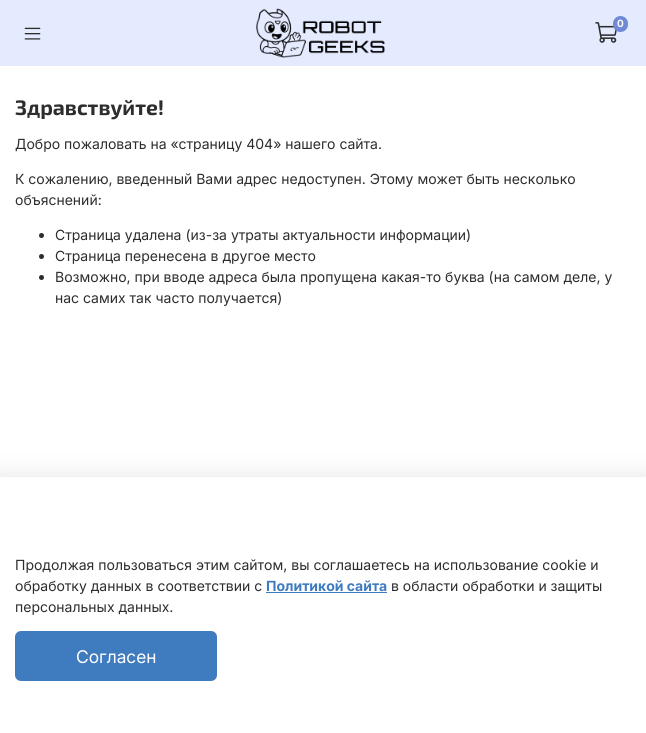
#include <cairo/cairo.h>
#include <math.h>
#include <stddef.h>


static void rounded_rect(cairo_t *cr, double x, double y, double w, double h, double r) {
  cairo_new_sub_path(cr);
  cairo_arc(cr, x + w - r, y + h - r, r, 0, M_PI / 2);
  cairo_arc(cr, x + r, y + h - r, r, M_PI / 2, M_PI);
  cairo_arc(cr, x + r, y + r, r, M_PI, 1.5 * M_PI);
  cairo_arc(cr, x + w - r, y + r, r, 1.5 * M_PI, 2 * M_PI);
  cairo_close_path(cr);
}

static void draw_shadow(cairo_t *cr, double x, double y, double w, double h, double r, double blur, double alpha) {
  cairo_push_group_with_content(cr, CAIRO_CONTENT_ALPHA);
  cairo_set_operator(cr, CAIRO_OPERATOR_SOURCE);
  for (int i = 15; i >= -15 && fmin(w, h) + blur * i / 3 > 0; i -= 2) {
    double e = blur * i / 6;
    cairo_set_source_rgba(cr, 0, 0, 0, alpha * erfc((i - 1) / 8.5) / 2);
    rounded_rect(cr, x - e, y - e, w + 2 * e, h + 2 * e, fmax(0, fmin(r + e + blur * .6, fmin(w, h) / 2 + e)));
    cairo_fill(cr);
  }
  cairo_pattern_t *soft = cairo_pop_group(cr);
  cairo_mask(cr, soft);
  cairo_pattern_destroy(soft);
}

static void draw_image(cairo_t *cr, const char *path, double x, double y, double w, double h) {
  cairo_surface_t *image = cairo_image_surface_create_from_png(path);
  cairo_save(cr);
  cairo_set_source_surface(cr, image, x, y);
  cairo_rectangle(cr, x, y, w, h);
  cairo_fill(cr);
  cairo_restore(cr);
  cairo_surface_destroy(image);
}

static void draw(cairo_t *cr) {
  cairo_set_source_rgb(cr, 1, 1, 1);
  cairo_paint(cr);
  cairo_set_source_rgb(cr, 229 / 255.0, 235 / 255.0, 1);
  cairo_rectangle(cr, 0, 0, 646, 66);
  cairo_fill(cr);
  draw_image(cr, "images/1.png", 256, 8, 129, 50);
  draw_image(cr, "images/2.png", 595, 22, 22, 21);
  cairo_set_source_rgb(cr, 113 / 255.0, 136 / 255.0, 212 / 255.0);
  rounded_rect(cr, 613, 16, 15, 16, 7.5);
  cairo_fill(cr);
  draw_image(cr, "images/3.png", 24, 27, 17, 13);
  cairo_set_source_rgb(cr, 45 / 255.0, 45 / 255.0, 45 / 255.0);
  cairo_arc(cr, 41.5, 235.5, 2.5, 0, 2 * M_PI);
  cairo_fill(cr);
  cairo_arc(cr, 41.5, 256.5, 2.5, 0, 2 * M_PI);
  cairo_fill(cr);
  cairo_arc(cr, 41.5, 277.5, 2.5, 0, 2 * M_PI);
  cairo_fill(cr);
  cairo_set_source_rgb(cr, 0, 0, 0);
  draw_shadow(cr, -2, 474, 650, 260, 0, 11.5, 0.09);
  cairo_set_source_rgb(cr, 1, 1, 1);
  cairo_rectangle(cr, 0, 477, 646, 256);
  cairo_fill(cr);
  cairo_set_source_rgb(cr, 62 / 255.0, 123 / 255.0, 191 / 255.0);
  cairo_rectangle(cr, 266, 592, 121, 1);
  cairo_fill(cr);
  rounded_rect(cr, 15, 631, 202, 50, 6);
  cairo_fill(cr);
  cairo_select_font_face(cr, "Inter", CAIRO_FONT_SLANT_NORMAL, CAIRO_FONT_WEIGHT_BOLD);
  cairo_set_font_size(cr, 10);
  cairo_set_source_rgb(cr, 1, 1, 1);
  cairo_move_to(cr, 617, 27);
  cairo_show_text(cr, "0");
  cairo_select_font_face(cr, "Exo 2", CAIRO_FONT_SLANT_NORMAL, CAIRO_FONT_WEIGHT_BOLD);
  cairo_set_font_size(cr, 21);
  cairo_set_source_rgb(cr, 45 / 255.0, 45 / 255.0, 45 / 255.0);
  cairo_move_to(cr, 15, 115);
  cairo_show_text(cr, "Здравствуйте!");
  cairo_select_font_face(cr, "Inter", CAIRO_FONT_SLANT_NORMAL, CAIRO_FONT_WEIGHT_NORMAL);
  cairo_set_font_size(cr, 14);
  cairo_move_to(cr, 15, 149);
  cairo_show_text(cr, "Добро пожаловать на «страницу 404» нашего сайта.");
  cairo_move_to(cr, 15, 184);
  cairo_show_text(cr, "К сожалению, введенный Вами адрес недоступен. Этому может быть несколько");
  cairo_move_to(cr, 15, 205);
  cairo_show_text(cr, "объяснений:");
  cairo_move_to(cr, 55, 240);
  cairo_show_text(cr, "Страница удалена (из-за утраты актуальности информации)");
  cairo_move_to(cr, 55, 261);
  cairo_show_text(cr, "Страница перенесена в другое место");
  cairo_move_to(cr, 55, 282);
  cairo_show_text(cr, "Возможно, при вводе адреса была пропущена какая-то буква (на самом деле, у");
  cairo_move_to(cr, 55, 303);
  cairo_show_text(cr, "нас самих так часто получается)");
  cairo_move_to(cr, 15, 570);
  cairo_show_text(cr, "Продолжая пользоваться этим сайтом, вы соглашаетесь на использование cookie и");
  cairo_move_to(cr, 15, 591);
  cairo_show_text(cr, "обработку данных в соответствии с");
  cairo_select_font_face(cr, "Inter", CAIRO_FONT_SLANT_NORMAL, CAIRO_FONT_WEIGHT_BOLD);
  cairo_set_source_rgb(cr, 62 / 255.0, 123 / 255.0, 191 / 255.0);
  cairo_move_to(cr, 266, 591);
  cairo_show_text(cr, "Политикой сайта");
  cairo_select_font_face(cr, "Inter", CAIRO_FONT_SLANT_NORMAL, CAIRO_FONT_WEIGHT_NORMAL);
  cairo_set_source_rgb(cr, 45 / 255.0, 45 / 255.0, 45 / 255.0);
  cairo_move_to(cr, 391, 591);
  cairo_show_text(cr, "в области обработки и защиты");
  cairo_move_to(cr, 15, 612);
  cairo_show_text(cr, "персональных данных.");
  cairo_select_font_face(cr, "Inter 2", CAIRO_FONT_SLANT_NORMAL, CAIRO_FONT_WEIGHT_NORMAL);
  cairo_set_font_size(cr, 17.5);
  cairo_set_source_rgb(cr, 1, 1, 1);
  cairo_move_to(cr, 76, 663);
  cairo_show_text(cr, "Согласен");
}

int main(void) {
  cairo_surface_t *surface = cairo_image_surface_create(CAIRO_FORMAT_RGB24, 646, 733);
  cairo_t *cr = cairo_create(surface);
  cairo_font_options_t *options = cairo_font_options_create();
  cairo_font_options_set_hint_metrics(options, CAIRO_HINT_METRICS_OFF);
  cairo_font_options_set_hint_style(options, CAIRO_HINT_STYLE_NONE);
  cairo_set_font_options(cr, options);
  cairo_set_miter_limit(cr, 4);
  draw(cr);
  cairo_surface_write_to_png(surface, "out.png");
  cairo_font_options_destroy(options);
  cairo_destroy(cr);
  cairo_surface_destroy(surface);
  return 0;
}
